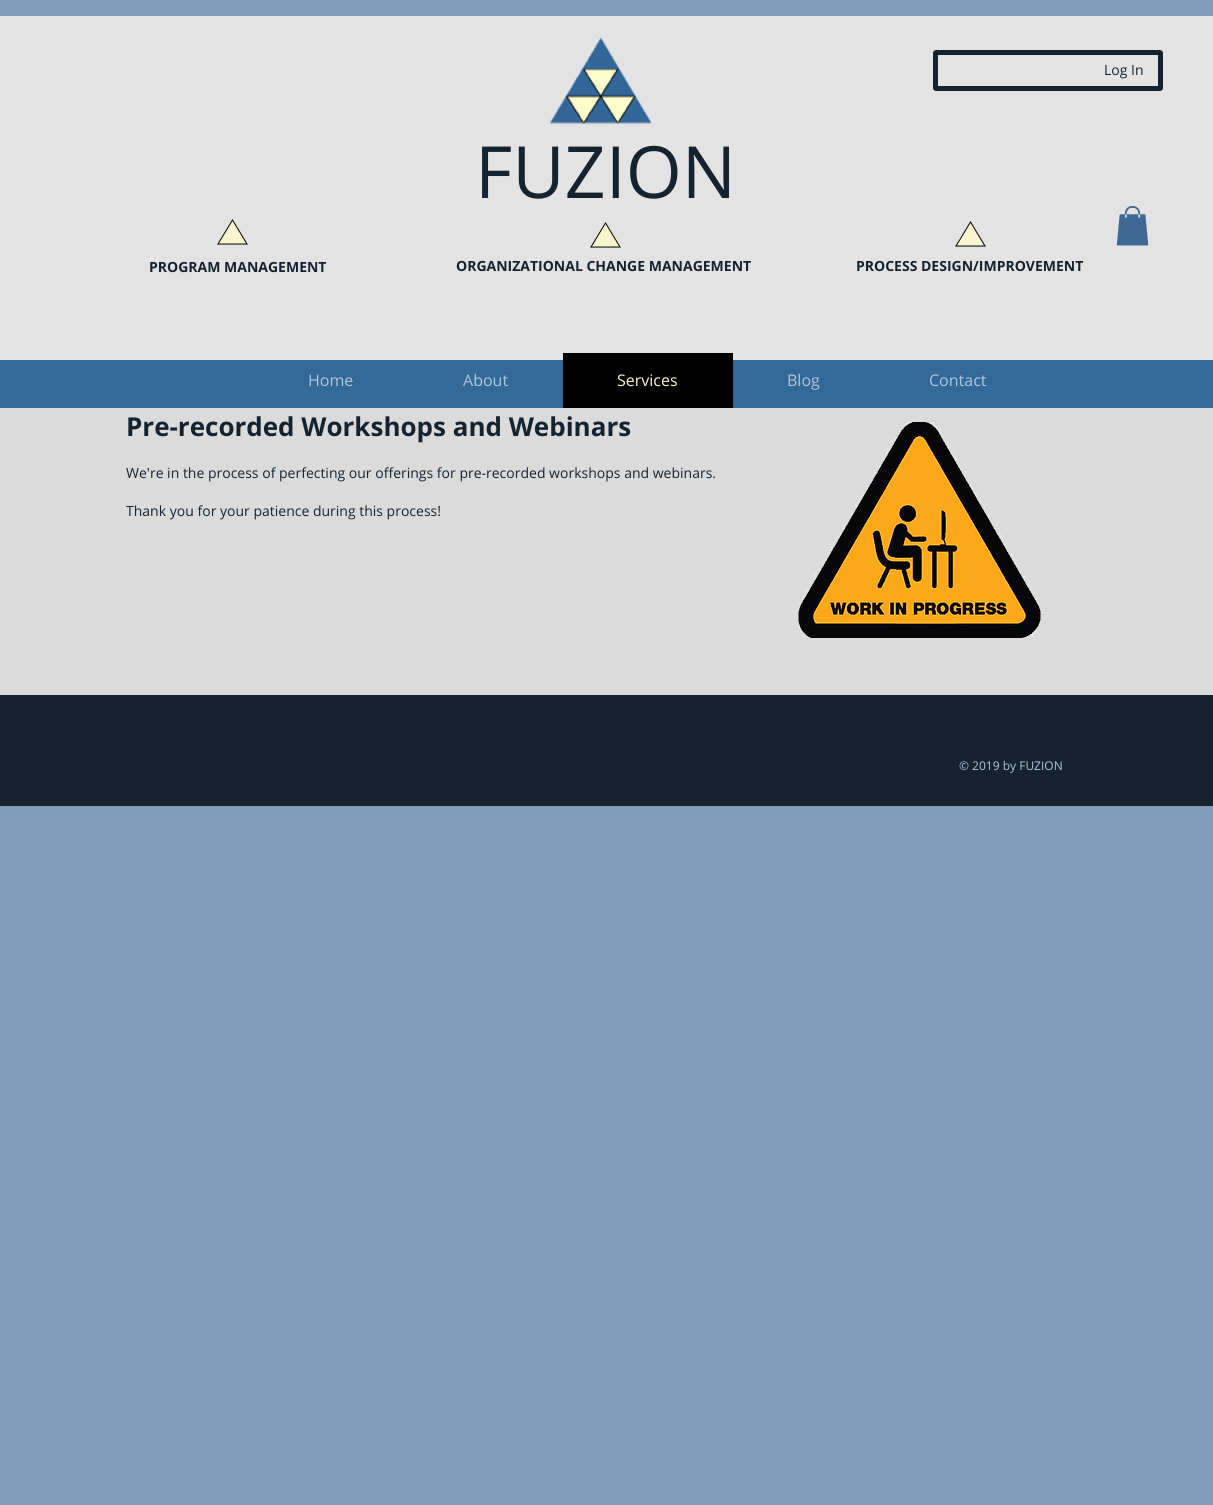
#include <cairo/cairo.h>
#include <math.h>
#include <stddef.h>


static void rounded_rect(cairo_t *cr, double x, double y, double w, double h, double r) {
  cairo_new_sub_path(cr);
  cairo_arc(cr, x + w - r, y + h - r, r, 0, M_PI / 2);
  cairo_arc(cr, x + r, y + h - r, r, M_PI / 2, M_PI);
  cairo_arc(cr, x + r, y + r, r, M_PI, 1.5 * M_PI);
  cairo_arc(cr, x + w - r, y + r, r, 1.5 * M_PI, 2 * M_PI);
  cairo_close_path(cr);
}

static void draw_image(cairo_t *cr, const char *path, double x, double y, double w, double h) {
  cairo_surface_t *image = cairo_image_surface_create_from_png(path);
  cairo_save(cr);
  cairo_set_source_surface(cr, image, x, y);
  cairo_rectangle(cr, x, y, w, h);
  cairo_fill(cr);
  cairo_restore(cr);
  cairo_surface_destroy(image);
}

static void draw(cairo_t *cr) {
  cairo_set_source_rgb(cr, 131 / 255.0, 156 / 255.0, 184 / 255.0);
  cairo_paint(cr);
  cairo_set_source_rgb(cr, 227 / 255.0, 227 / 255.0, 227 / 255.0);
  cairo_rectangle(cr, 0, 16, 1213, 344);
  cairo_fill(cr);
  draw_image(cr, "images/1.png", 549, 37, 103, 87);
  rounded_rect(cr, 935.5, 52.5, 225, 36, 0.5);
  cairo_set_source_rgb(cr, 21 / 255.0, 35 / 255.0, 49 / 255.0);
  cairo_set_line_width(cr, 5);
  cairo_stroke(cr);
  cairo_set_source_rgb(cr, 249 / 255.0, 246 / 255.0, 207 / 255.0);
  cairo_new_path(cr);
  cairo_move_to(cr, 232.5, 220);
  cairo_line_to(cr, 247, 244);
  cairo_line_to(cr, 218, 244);
  cairo_close_path(cr);
  cairo_fill_preserve(cr);
  cairo_set_source_rgb(cr, 0, 0, 0);
  cairo_set_line_width(cr, 1);
  cairo_stroke(cr);
  cairo_set_source_rgb(cr, 249 / 255.0, 246 / 255.0, 207 / 255.0);
  cairo_new_path(cr);
  cairo_move_to(cr, 605.5, 223);
  cairo_line_to(cr, 620, 247);
  cairo_line_to(cr, 591, 247);
  cairo_close_path(cr);
  cairo_fill_preserve(cr);
  cairo_set_source_rgb(cr, 0, 0, 0);
  cairo_stroke(cr);
  cairo_set_source_rgb(cr, 249 / 255.0, 246 / 255.0, 207 / 255.0);
  cairo_new_path(cr);
  cairo_move_to(cr, 970.5, 222);
  cairo_line_to(cr, 985, 246);
  cairo_line_to(cr, 956, 246);
  cairo_close_path(cr);
  cairo_fill_preserve(cr);
  cairo_set_source_rgb(cr, 0, 0, 0);
  cairo_stroke(cr);
  draw_image(cr, "images/2.png", 1116, 206, 33, 40);
  cairo_set_source_rgb(cr, 50 / 255.0, 105 / 255.0, 153 / 255.0);
  cairo_rectangle(cr, 0, 360, 1213, 48);
  cairo_fill(cr);
  cairo_set_source_rgb(cr, 0, 0, 0);
  cairo_rectangle(cr, 563, 353, 170, 55);
  cairo_fill(cr);
  cairo_set_source_rgb(cr, 219 / 255.0, 219 / 255.0, 219 / 255.0);
  cairo_rectangle(cr, 0, 408, 1213, 287);
  cairo_fill(cr);
  draw_image(cr, "images/3.png", 798, 422, 243, 216);
  cairo_set_source_rgb(cr, 21 / 255.0, 35 / 255.0, 49 / 255.0);
  cairo_rectangle(cr, 0, 695, 1213, 111);
  cairo_fill(cr);
  cairo_select_font_face(cr, "Open Sans", CAIRO_FONT_SLANT_NORMAL, CAIRO_FONT_WEIGHT_NORMAL);
  cairo_set_font_size(cr, 14);
  cairo_move_to(cr, 1104, 75);
  cairo_show_text(cr, "Log In");
  cairo_set_font_size(cr, 72);
  cairo_move_to(cr, 475, 198);
  cairo_show_text(cr, "FUZION");
  cairo_select_font_face(cr, "Open Sans", CAIRO_FONT_SLANT_NORMAL, CAIRO_FONT_WEIGHT_BOLD);
  cairo_set_font_size(cr, 14);
  cairo_move_to(cr, 149, 272);
  cairo_show_text(cr, "PROGRAM MANAGEMENT");
  cairo_move_to(cr, 456, 271);
  cairo_show_text(cr, "ORGANIZATIONAL CHANGE MANAGEMENT");
  cairo_move_to(cr, 856, 271);
  cairo_show_text(cr, "PROCESS DESIGN/IMPROVEMENT");
  cairo_select_font_face(cr, "Open Sans", CAIRO_FONT_SLANT_NORMAL, CAIRO_FONT_WEIGHT_NORMAL);
  cairo_set_font_size(cr, 16);
  cairo_set_source_rgb(cr, 177 / 255.0, 198 / 255.0, 219 / 255.0);
  cairo_move_to(cr, 308, 386);
  cairo_show_text(cr, "Home");
  cairo_move_to(cr, 463, 386);
  cairo_show_text(cr, "About");
  cairo_set_source_rgb(cr, 249 / 255.0, 246 / 255.0, 207 / 255.0);
  cairo_move_to(cr, 617, 386);
  cairo_show_text(cr, "Services");
  cairo_set_source_rgb(cr, 177 / 255.0, 198 / 255.0, 219 / 255.0);
  cairo_move_to(cr, 787, 386);
  cairo_show_text(cr, "Blog");
  cairo_move_to(cr, 929, 386);
  cairo_show_text(cr, "Contact");
  cairo_select_font_face(cr, "Open Sans", CAIRO_FONT_SLANT_NORMAL, CAIRO_FONT_WEIGHT_BOLD);
  cairo_set_font_size(cr, 26);
  cairo_set_source_rgb(cr, 21 / 255.0, 35 / 255.0, 49 / 255.0);
  cairo_move_to(cr, 126, 436);
  cairo_show_text(cr, "Pre-recorded Workshops and Webinars");
  cairo_select_font_face(cr, "Open Sans", CAIRO_FONT_SLANT_NORMAL, CAIRO_FONT_WEIGHT_NORMAL);
  cairo_set_font_size(cr, 14);
  cairo_move_to(cr, 126, 478);
  cairo_show_text(cr, "We're in the process of perfecting our offerings for pre-recorded workshops and webinars.");
  cairo_move_to(cr, 126, 516);
  cairo_show_text(cr, "Thank you for your patience during this process!");
  cairo_set_font_size(cr, 12);
  cairo_set_source_rgb(cr, 177 / 255.0, 198 / 255.0, 219 / 255.0);
  cairo_move_to(cr, 959, 770);
  cairo_show_text(cr, "© 2019 by FUZION");
}

int main(void) {
  cairo_surface_t *surface = cairo_image_surface_create(CAIRO_FORMAT_RGB24, 1213, 1505);
  cairo_t *cr = cairo_create(surface);
  cairo_font_options_t *options = cairo_font_options_create();
  cairo_font_options_set_hint_metrics(options, CAIRO_HINT_METRICS_OFF);
  cairo_font_options_set_hint_style(options, CAIRO_HINT_STYLE_NONE);
  cairo_set_font_options(cr, options);
  cairo_set_miter_limit(cr, 4);
  draw(cr);
  cairo_surface_write_to_png(surface, "out.png");
  cairo_font_options_destroy(options);
  cairo_destroy(cr);
  cairo_surface_destroy(surface);
  return 0;
}
